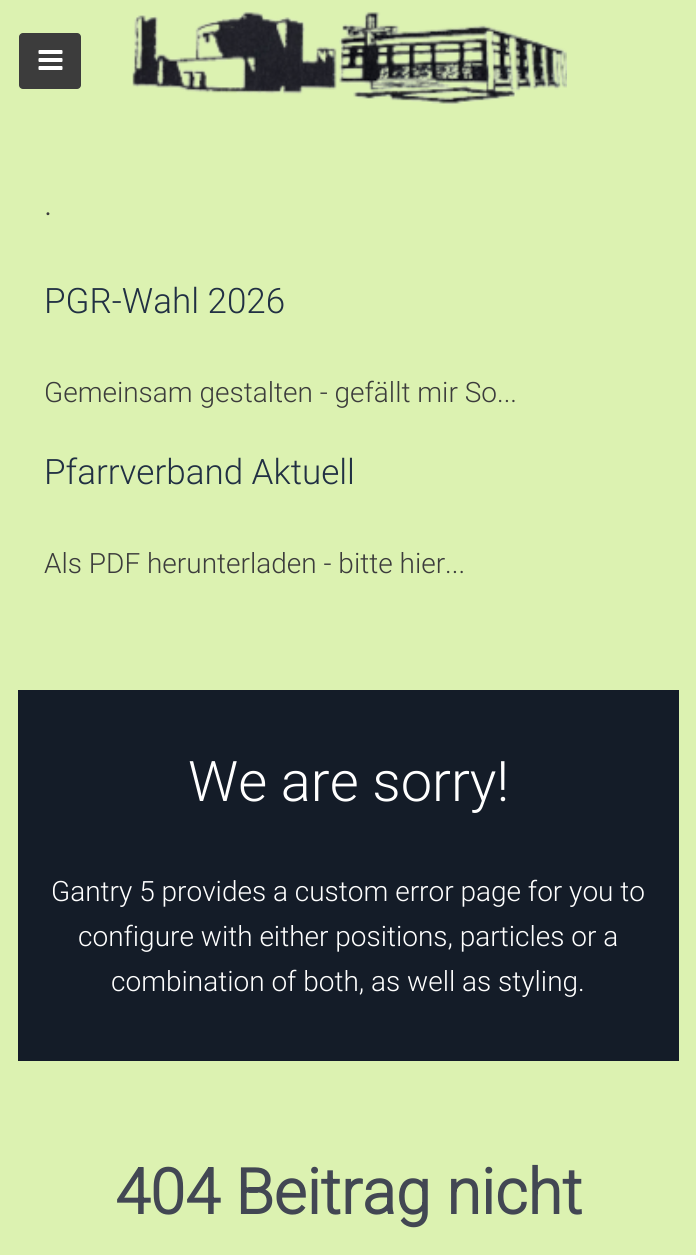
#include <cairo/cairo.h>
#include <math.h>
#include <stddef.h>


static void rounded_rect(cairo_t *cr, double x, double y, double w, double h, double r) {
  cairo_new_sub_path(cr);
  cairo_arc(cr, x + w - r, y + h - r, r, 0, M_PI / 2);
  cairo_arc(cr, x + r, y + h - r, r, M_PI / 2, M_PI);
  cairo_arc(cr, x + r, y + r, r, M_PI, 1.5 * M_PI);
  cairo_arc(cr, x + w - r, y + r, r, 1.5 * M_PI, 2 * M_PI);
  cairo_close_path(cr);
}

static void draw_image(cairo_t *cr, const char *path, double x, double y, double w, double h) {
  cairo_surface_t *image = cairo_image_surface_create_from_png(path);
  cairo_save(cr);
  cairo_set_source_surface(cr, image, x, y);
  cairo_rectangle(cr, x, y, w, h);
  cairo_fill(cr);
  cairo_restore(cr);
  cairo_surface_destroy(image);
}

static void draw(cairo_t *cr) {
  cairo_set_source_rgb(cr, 220 / 255.0, 242 / 255.0, 177 / 255.0);
  cairo_paint(cr);
  cairo_set_source_rgb(cr, 60 / 255.0, 60 / 255.0, 60 / 255.0);
  rounded_rect(cr, 19, 33, 62, 56, 4);
  cairo_fill(cr);
  draw_image(cr, "images/1.png", 38, 50, 25, 20);
  draw_image(cr, "images/2.png", 131, 11, 436, 94);
  cairo_set_source_rgb(cr, 20 / 255.0, 28 / 255.0, 40 / 255.0);
  cairo_rectangle(cr, 18, 690, 661, 371);
  cairo_fill(cr);
  cairo_select_font_face(cr, "Roboto Light", CAIRO_FONT_SLANT_NORMAL, CAIRO_FONT_WEIGHT_NORMAL);
  cairo_set_font_size(cr, 35);
  cairo_set_source_rgb(cr, 60 / 255.0, 60 / 255.0, 60 / 255.0);
  cairo_move_to(cr, 44, 215);
  cairo_show_text(cr, ".");
  cairo_set_source_rgb(cr, 33 / 255.0, 48 / 255.0, 67 / 255.0);
  cairo_move_to(cr, 44, 313);
  cairo_show_text(cr, "PGR-Wahl 2026");
  cairo_set_font_size(cr, 28);
  cairo_set_source_rgb(cr, 60 / 255.0, 60 / 255.0, 60 / 255.0);
  cairo_move_to(cr, 44, 402);
  cairo_show_text(cr, "Gemeinsam gestalten - gefällt mir So...");
  cairo_set_font_size(cr, 35);
  cairo_set_source_rgb(cr, 33 / 255.0, 48 / 255.0, 67 / 255.0);
  cairo_move_to(cr, 44, 484);
  cairo_show_text(cr, "Pfarrverband Aktuell");
  cairo_set_font_size(cr, 28);
  cairo_set_source_rgb(cr, 60 / 255.0, 60 / 255.0, 60 / 255.0);
  cairo_move_to(cr, 44, 573);
  cairo_show_text(cr, "Als PDF herunterladen - bitte hier...");
  cairo_set_font_size(cr, 56);
  cairo_set_source_rgb(cr, 1, 1, 1);
  cairo_move_to(cr, 188, 801);
  cairo_show_text(cr, "We are sorry!");
  cairo_set_font_size(cr, 28);
  cairo_move_to(cr, 51, 901);
  cairo_show_text(cr, "Gantry 5 provides a custom error page for you to");
  cairo_move_to(cr, 78, 946);
  cairo_show_text(cr, "configure with either positions, particles or a");
  cairo_move_to(cr, 111, 991);
  cairo_show_text(cr, "combination of both, as well as styling.");
  cairo_select_font_face(cr, "Roboto", CAIRO_FONT_SLANT_NORMAL, CAIRO_FONT_WEIGHT_BOLD);
  cairo_set_font_size(cr, 63);
  cairo_set_source_rgb(cr, 66 / 255.0, 71 / 255.0, 83 / 255.0);
  cairo_move_to(cr, 115, 1214);
  cairo_show_text(cr, "404 Beitrag nicht");
}

int main(void) {
  cairo_surface_t *surface = cairo_image_surface_create(CAIRO_FORMAT_RGB24, 696, 1255);
  cairo_t *cr = cairo_create(surface);
  cairo_font_options_t *options = cairo_font_options_create();
  cairo_font_options_set_hint_metrics(options, CAIRO_HINT_METRICS_OFF);
  cairo_font_options_set_hint_style(options, CAIRO_HINT_STYLE_NONE);
  cairo_set_font_options(cr, options);
  cairo_set_miter_limit(cr, 4);
  draw(cr);
  cairo_surface_write_to_png(surface, "out.png");
  cairo_font_options_destroy(options);
  cairo_destroy(cr);
  cairo_surface_destroy(surface);
  return 0;
}
